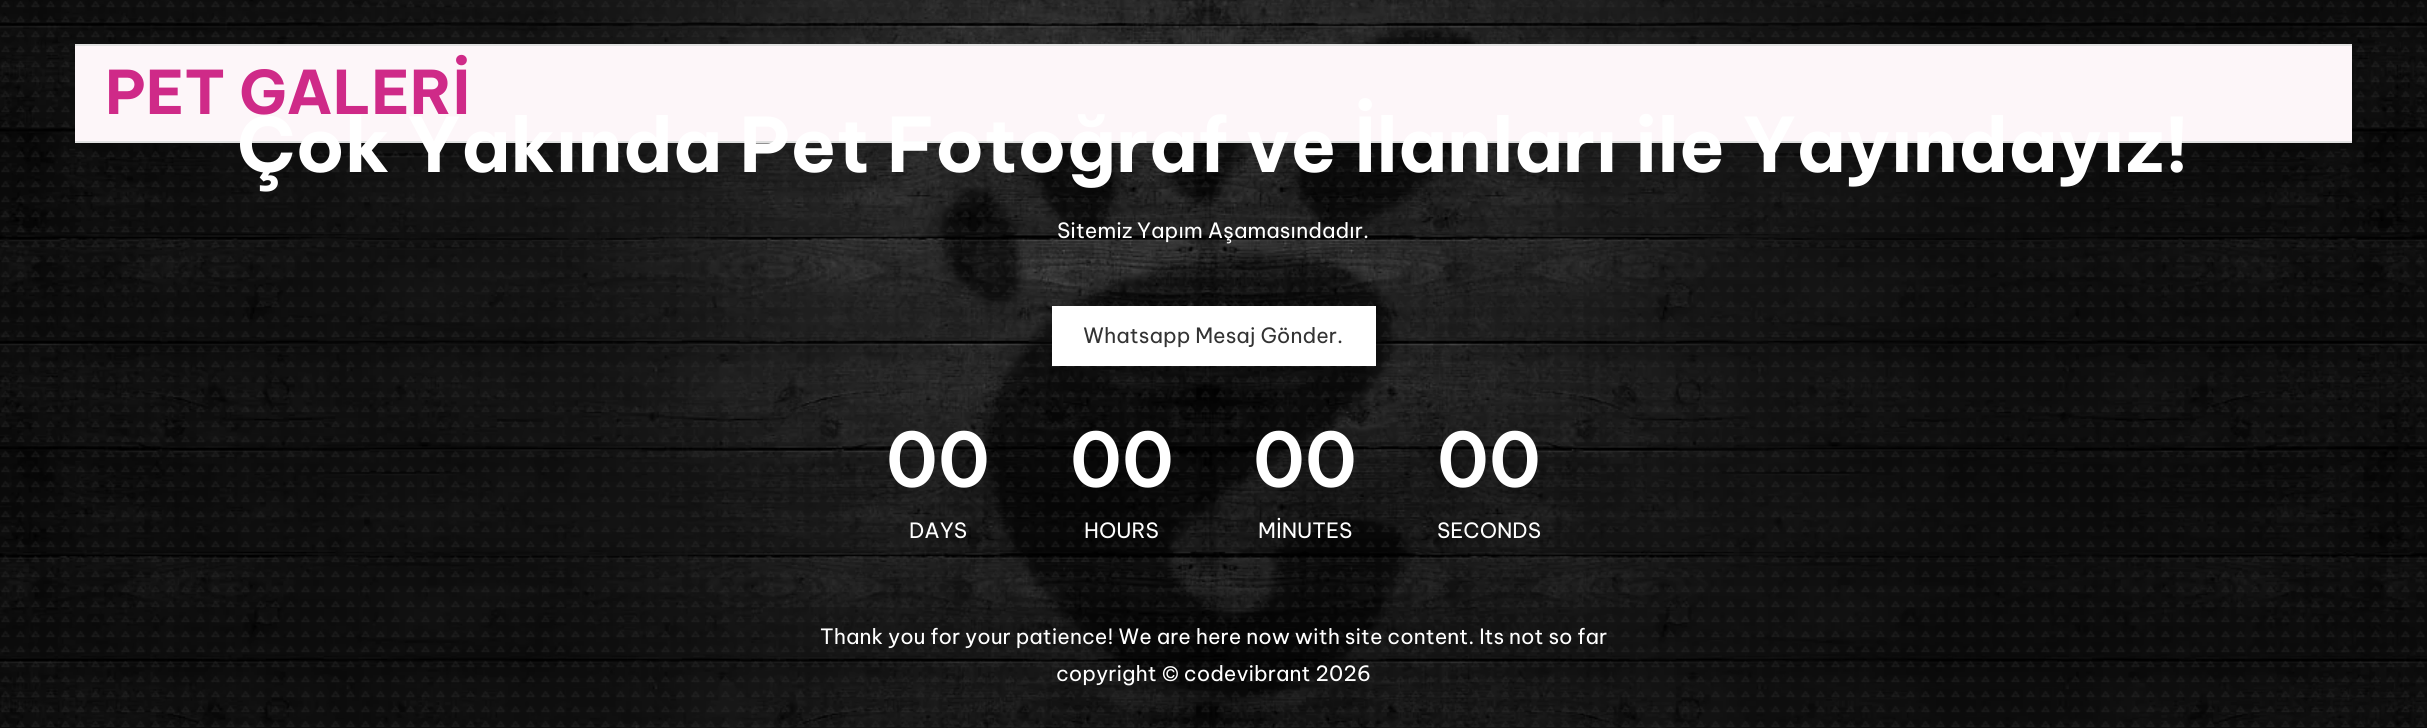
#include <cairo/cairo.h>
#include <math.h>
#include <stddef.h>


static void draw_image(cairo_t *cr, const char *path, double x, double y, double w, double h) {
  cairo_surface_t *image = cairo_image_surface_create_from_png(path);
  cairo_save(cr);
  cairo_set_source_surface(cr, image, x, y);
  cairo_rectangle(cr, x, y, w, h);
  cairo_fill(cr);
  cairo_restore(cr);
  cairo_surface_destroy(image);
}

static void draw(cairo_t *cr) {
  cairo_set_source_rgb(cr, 1, 1, 1);
  cairo_paint(cr);
  draw_image(cr, "images/1.png", 0, 0, 2427, 728);
  draw_image(cr, "images/2.png", 1, 1, 2424, 726);
  cairo_set_source_rgb(cr, 253 / 255.0, 246 / 255.0, 249 / 255.0);
  cairo_rectangle(cr, 75, 46, 2277, 95);
  cairo_fill(cr);
  cairo_set_source_rgb(cr, 225 / 255.0, 225 / 255.0, 225 / 255.0);
  cairo_rectangle(cr, 75, 44, 2277, 2);
  cairo_fill(cr);
  cairo_rectangle(cr, 75, 141, 2277, 2);
  cairo_fill(cr);
  cairo_set_source_rgb(cr, 1, 1, 1);
  cairo_rectangle(cr, 1052, 306, 324, 60);
  cairo_fill(cr);
  cairo_select_font_face(cr, "Be Vietnam Pro", CAIRO_FONT_SLANT_NORMAL, CAIRO_FONT_WEIGHT_BOLD);
  cairo_set_font_size(cr, 60);
  cairo_set_source_rgb(cr, 207 / 255.0, 42 / 255.0, 136 / 255.0);
  cairo_move_to(cr, 105, 114);
  cairo_show_text(cr, "PET GALERİ");
  cairo_set_font_size(cr, 75);
  cairo_set_source_rgb(cr, 1, 1, 1);
  cairo_move_to(cr, 237, 172);
  cairo_show_text(cr, "Çok Yakında Pet Fotoğraf ve İlanları ile Yayındayız!");
  cairo_select_font_face(cr, "Be Vietnam Pro", CAIRO_FONT_SLANT_NORMAL, CAIRO_FONT_WEIGHT_NORMAL);
  cairo_set_font_size(cr, 21);
  cairo_move_to(cr, 1057, 238);
  cairo_show_text(cr, "Sitemiz Yapım Aşamasındadır.");
  cairo_set_source_rgb(cr, 51 / 255.0, 51 / 255.0, 51 / 255.0);
  cairo_move_to(cr, 1083, 343);
  cairo_show_text(cr, "Whatsapp Mesaj Gönder.");
  cairo_select_font_face(cr, "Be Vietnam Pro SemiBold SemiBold", CAIRO_FONT_SLANT_NORMAL, CAIRO_FONT_WEIGHT_NORMAL);
  cairo_set_font_size(cr, 75);
  cairo_set_source_rgb(cr, 1, 1, 1);
  cairo_move_to(cr, 886, 487);
  cairo_show_text(cr, "00");
  cairo_select_font_face(cr, "Be Vietnam Pro", CAIRO_FONT_SLANT_NORMAL, CAIRO_FONT_WEIGHT_NORMAL);
  cairo_set_font_size(cr, 21);
  cairo_move_to(cr, 909, 538);
  cairo_show_text(cr, "DAYS");
  cairo_select_font_face(cr, "Be Vietnam Pro SemiBold SemiBold", CAIRO_FONT_SLANT_NORMAL, CAIRO_FONT_WEIGHT_NORMAL);
  cairo_set_font_size(cr, 75);
  cairo_move_to(cr, 1070, 487);
  cairo_show_text(cr, "00");
  cairo_select_font_face(cr, "Be Vietnam Pro", CAIRO_FONT_SLANT_NORMAL, CAIRO_FONT_WEIGHT_NORMAL);
  cairo_set_font_size(cr, 21);
  cairo_move_to(cr, 1084, 538);
  cairo_show_text(cr, "HOURS");
  cairo_select_font_face(cr, "Be Vietnam Pro SemiBold SemiBold", CAIRO_FONT_SLANT_NORMAL, CAIRO_FONT_WEIGHT_NORMAL);
  cairo_set_font_size(cr, 75);
  cairo_move_to(cr, 1253, 487);
  cairo_show_text(cr, "00");
  cairo_select_font_face(cr, "Be Vietnam Pro", CAIRO_FONT_SLANT_NORMAL, CAIRO_FONT_WEIGHT_NORMAL);
  cairo_set_font_size(cr, 21);
  cairo_move_to(cr, 1258, 538);
  cairo_show_text(cr, "MİNUTES");
  cairo_select_font_face(cr, "Be Vietnam Pro SemiBold SemiBold", CAIRO_FONT_SLANT_NORMAL, CAIRO_FONT_WEIGHT_NORMAL);
  cairo_set_font_size(cr, 75);
  cairo_move_to(cr, 1437, 487);
  cairo_show_text(cr, "00");
  cairo_select_font_face(cr, "Be Vietnam Pro", CAIRO_FONT_SLANT_NORMAL, CAIRO_FONT_WEIGHT_NORMAL);
  cairo_set_font_size(cr, 21);
  cairo_move_to(cr, 1437, 538);
  cairo_show_text(cr, "SECONDS");
  cairo_move_to(cr, 820, 644);
  cairo_show_text(cr, "Thank you for your patience! We are here now with site content. Its not so far");
  cairo_move_to(cr, 1056, 681);
  cairo_show_text(cr, "copyright © codevibrant 2026");
}

int main(void) {
  cairo_surface_t *surface = cairo_image_surface_create(CAIRO_FORMAT_RGB24, 2427, 728);
  cairo_t *cr = cairo_create(surface);
  cairo_font_options_t *options = cairo_font_options_create();
  cairo_font_options_set_hint_metrics(options, CAIRO_HINT_METRICS_OFF);
  cairo_font_options_set_hint_style(options, CAIRO_HINT_STYLE_NONE);
  cairo_set_font_options(cr, options);
  cairo_set_miter_limit(cr, 4);
  draw(cr);
  cairo_surface_write_to_png(surface, "out.png");
  cairo_font_options_destroy(options);
  cairo_destroy(cr);
  cairo_surface_destroy(surface);
  return 0;
}
